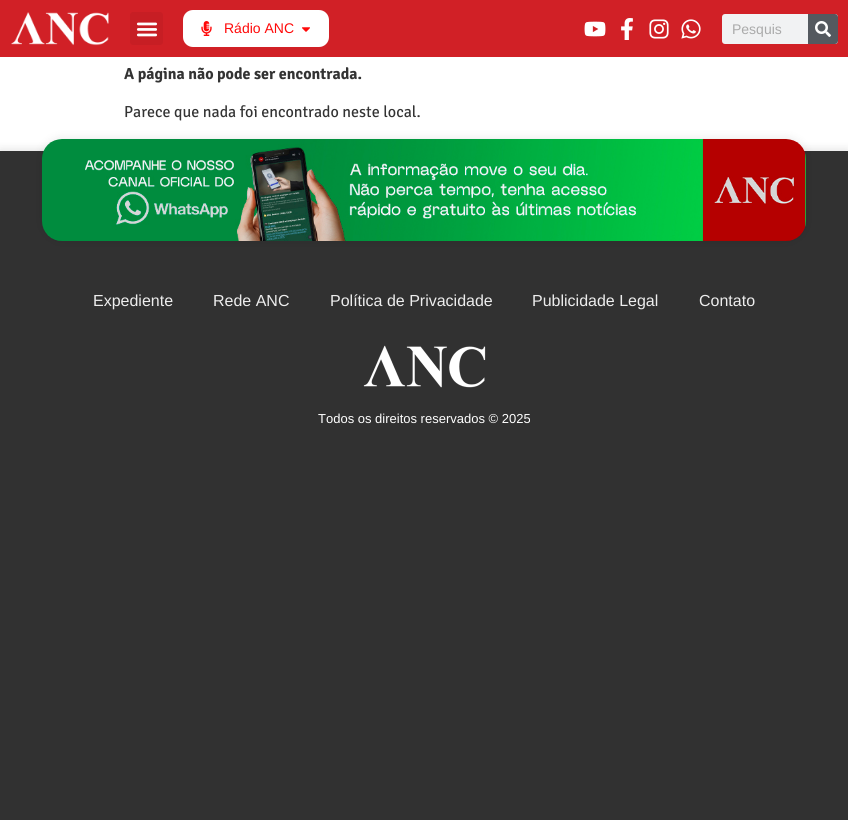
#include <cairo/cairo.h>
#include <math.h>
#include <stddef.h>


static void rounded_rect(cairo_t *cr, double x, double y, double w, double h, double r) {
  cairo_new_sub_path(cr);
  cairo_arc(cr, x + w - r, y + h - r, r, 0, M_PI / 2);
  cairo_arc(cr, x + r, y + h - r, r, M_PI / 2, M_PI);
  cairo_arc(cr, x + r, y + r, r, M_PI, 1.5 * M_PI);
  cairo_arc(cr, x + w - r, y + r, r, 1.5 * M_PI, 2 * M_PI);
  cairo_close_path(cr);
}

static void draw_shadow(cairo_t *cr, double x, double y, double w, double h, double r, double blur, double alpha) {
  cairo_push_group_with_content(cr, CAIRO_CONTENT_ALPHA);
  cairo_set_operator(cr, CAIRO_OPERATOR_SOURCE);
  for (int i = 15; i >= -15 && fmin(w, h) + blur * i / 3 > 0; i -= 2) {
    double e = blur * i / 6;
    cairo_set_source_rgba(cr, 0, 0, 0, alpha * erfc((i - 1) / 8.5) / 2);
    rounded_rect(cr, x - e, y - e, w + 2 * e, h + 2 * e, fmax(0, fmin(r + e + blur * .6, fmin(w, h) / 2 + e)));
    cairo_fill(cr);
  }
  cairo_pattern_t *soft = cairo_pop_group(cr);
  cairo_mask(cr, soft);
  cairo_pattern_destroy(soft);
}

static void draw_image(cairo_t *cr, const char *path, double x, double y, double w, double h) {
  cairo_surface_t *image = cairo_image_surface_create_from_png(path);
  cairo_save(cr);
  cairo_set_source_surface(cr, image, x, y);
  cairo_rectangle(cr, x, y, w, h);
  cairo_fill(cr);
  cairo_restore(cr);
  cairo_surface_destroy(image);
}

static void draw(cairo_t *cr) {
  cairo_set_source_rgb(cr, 1, 1, 1);
  cairo_paint(cr);
  cairo_set_source_rgb(cr, 209 / 255.0, 32 / 255.0, 38 / 255.0);
  cairo_rectangle(cr, 0, 0, 848, 57);
  cairo_fill(cr);
  draw_image(cr, "images/1.png", 11, 12, 98, 34);
  cairo_set_source_rgb(cr, 199 / 255.0, 30 / 255.0, 36 / 255.0);
  rounded_rect(cr, 130, 12, 33, 33, 3);
  cairo_fill(cr);
  draw_image(cr, "images/2.png", 136, 22, 22, 15);
  cairo_set_source_rgb(cr, 1, 1, 1);
  rounded_rect(cr, 183, 10, 146, 37, 10);
  cairo_fill(cr);
  draw_image(cr, "images/3.png", 201, 21, 11, 15);
  draw_image(cr, "images/4.png", 302, 27, 8, 5);
  draw_image(cr, "images/5.png", 584, 21, 22, 16);
  draw_image(cr, "images/6.png", 621, 18, 12, 22);
  draw_image(cr, "images/7.png", 649, 19, 20, 20);
  draw_image(cr, "images/8.png", 681, 19, 20, 20);
  cairo_set_source_rgb(cr, 241 / 255.0, 242 / 255.0, 243 / 255.0);
  rounded_rect(cr, 722, 14, 116, 30, 3);
  cairo_fill(cr);
  cairo_set_source_rgb(cr, 84 / 255.0, 89 / 255.0, 95 / 255.0);
  cairo_new_path(cr);
  cairo_move_to(cr, 808, 14);
  cairo_line_to(cr, 835, 14);
  cairo_curve_to(cr, 836.5, 14, 838, 15.5, 838, 17);
  cairo_line_to(cr, 838, 41);
  cairo_curve_to(cr, 838, 42.5, 836.5, 44, 835, 44);
  cairo_line_to(cr, 808, 44);
  cairo_close_path(cr);
  cairo_fill(cr);
  draw_image(cr, "images/9.png", 815, 21, 16, 16);
  cairo_set_source_rgb(cr, 0, 0, 0);
  draw_shadow(cr, 0, 151, 848, 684, 0, 5, 0.15);
  cairo_set_source_rgb(cr, 49 / 255.0, 49 / 255.0, 49 / 255.0);
  cairo_rectangle(cr, 0, 151, 848, 669);
  cairo_fill(cr);
  cairo_set_source_rgb(cr, 0, 0, 0);
  draw_shadow(cr, 42, 139, 764, 102, 20, 5, 0.1);
  draw_image(cr, "images/10.png", 42, 139, 764, 102);
  draw_image(cr, "images/11.png", 363, 345, 123, 43);
  cairo_select_font_face(cr, "Liberation Sans", CAIRO_FONT_SLANT_NORMAL, CAIRO_FONT_WEIGHT_NORMAL);
  cairo_set_font_size(cr, 14);
  cairo_set_source_rgb(cr, 1, 9 / 255.0, 9 / 255.0);
  cairo_move_to(cr, 224, 33);
  cairo_show_text(cr, "Rádio ANC");
  cairo_set_source_rgb(cr, 170 / 255.0, 170 / 255.0, 170 / 255.0);
  cairo_move_to(cr, 732, 34);
  cairo_show_text(cr, "Pesquis");
  cairo_select_font_face(cr, "Signika Negative", CAIRO_FONT_SLANT_NORMAL, CAIRO_FONT_WEIGHT_BOLD);
  cairo_set_font_size(cr, 16);
  cairo_set_source_rgb(cr, 51 / 255.0, 51 / 255.0, 51 / 255.0);
  cairo_move_to(cr, 124, 79);
  cairo_show_text(cr, "A página não pode ser encontrada.");
  cairo_select_font_face(cr, "Signika Negative", CAIRO_FONT_SLANT_NORMAL, CAIRO_FONT_WEIGHT_NORMAL);
  cairo_move_to(cr, 124, 117);
  cairo_show_text(cr, "Parece que nada foi encontrado neste local.");
  cairo_select_font_face(cr, "Liberation Sans", CAIRO_FONT_SLANT_NORMAL, CAIRO_FONT_WEIGHT_NORMAL);
  cairo_set_source_rgb(cr, 237 / 255.0, 237 / 255.0, 237 / 255.0);
  cairo_move_to(cr, 93, 306);
  cairo_show_text(cr, "Expediente");
  cairo_move_to(cr, 213, 306);
  cairo_show_text(cr, "Rede ANC");
  cairo_move_to(cr, 330, 306);
  cairo_show_text(cr, "Política de Privacidade");
  cairo_move_to(cr, 532, 306);
  cairo_show_text(cr, "Publicidade Legal");
  cairo_move_to(cr, 699, 306);
  cairo_show_text(cr, "Contato");
  cairo_set_font_size(cr, 13);
  cairo_set_source_rgb(cr, 1, 1, 1);
  cairo_move_to(cr, 318, 423);
  cairo_show_text(cr, "Todos os direitos reservados © 2025");
}

int main(void) {
  cairo_surface_t *surface = cairo_image_surface_create(CAIRO_FORMAT_RGB24, 848, 820);
  cairo_t *cr = cairo_create(surface);
  cairo_font_options_t *options = cairo_font_options_create();
  cairo_font_options_set_hint_metrics(options, CAIRO_HINT_METRICS_OFF);
  cairo_font_options_set_hint_style(options, CAIRO_HINT_STYLE_NONE);
  cairo_set_font_options(cr, options);
  cairo_set_miter_limit(cr, 4);
  draw(cr);
  cairo_surface_write_to_png(surface, "out.png");
  cairo_font_options_destroy(options);
  cairo_destroy(cr);
  cairo_surface_destroy(surface);
  return 0;
}
